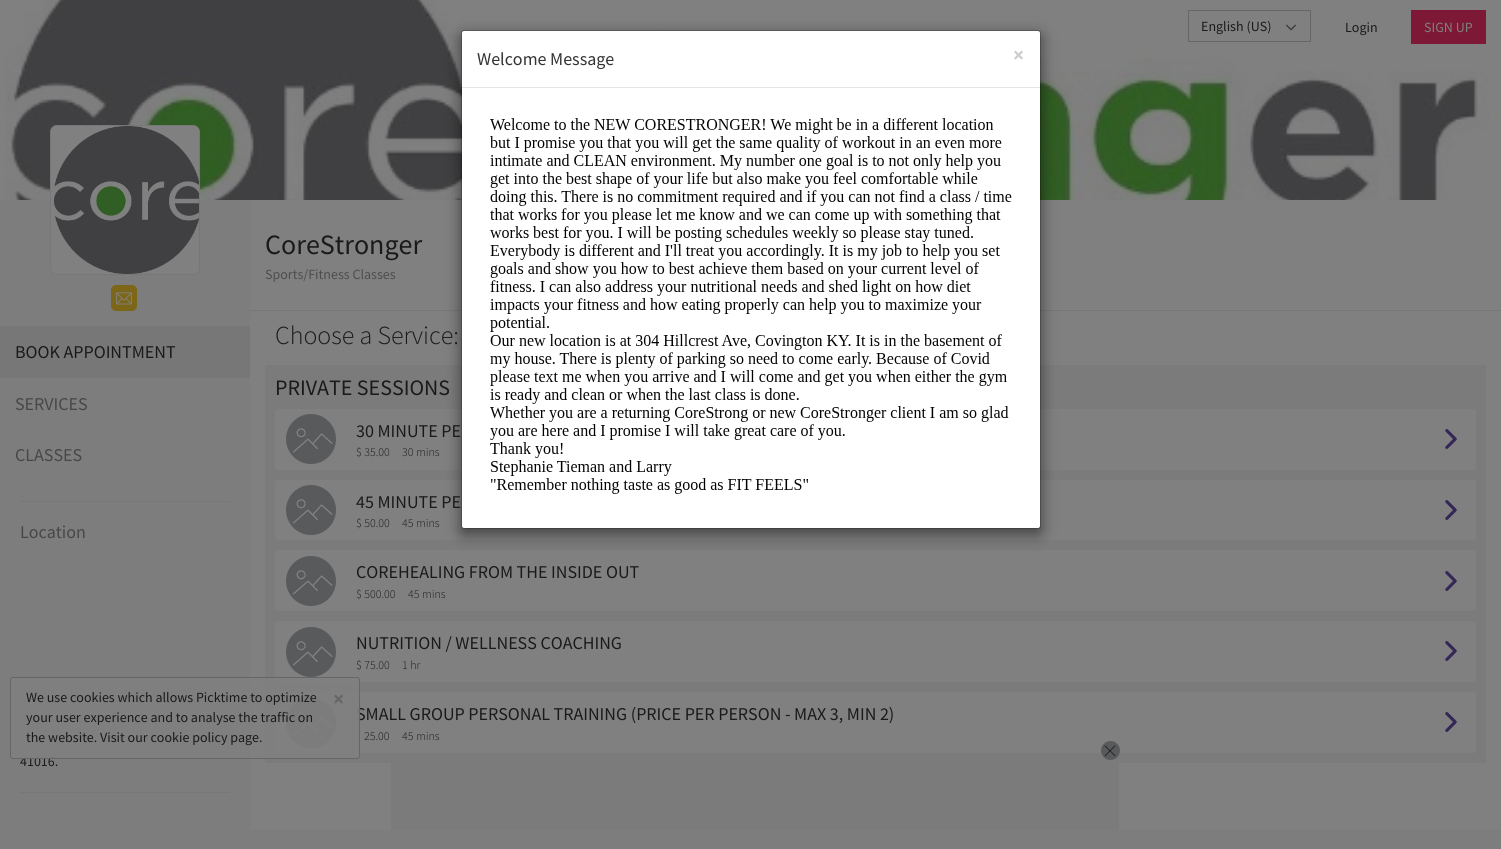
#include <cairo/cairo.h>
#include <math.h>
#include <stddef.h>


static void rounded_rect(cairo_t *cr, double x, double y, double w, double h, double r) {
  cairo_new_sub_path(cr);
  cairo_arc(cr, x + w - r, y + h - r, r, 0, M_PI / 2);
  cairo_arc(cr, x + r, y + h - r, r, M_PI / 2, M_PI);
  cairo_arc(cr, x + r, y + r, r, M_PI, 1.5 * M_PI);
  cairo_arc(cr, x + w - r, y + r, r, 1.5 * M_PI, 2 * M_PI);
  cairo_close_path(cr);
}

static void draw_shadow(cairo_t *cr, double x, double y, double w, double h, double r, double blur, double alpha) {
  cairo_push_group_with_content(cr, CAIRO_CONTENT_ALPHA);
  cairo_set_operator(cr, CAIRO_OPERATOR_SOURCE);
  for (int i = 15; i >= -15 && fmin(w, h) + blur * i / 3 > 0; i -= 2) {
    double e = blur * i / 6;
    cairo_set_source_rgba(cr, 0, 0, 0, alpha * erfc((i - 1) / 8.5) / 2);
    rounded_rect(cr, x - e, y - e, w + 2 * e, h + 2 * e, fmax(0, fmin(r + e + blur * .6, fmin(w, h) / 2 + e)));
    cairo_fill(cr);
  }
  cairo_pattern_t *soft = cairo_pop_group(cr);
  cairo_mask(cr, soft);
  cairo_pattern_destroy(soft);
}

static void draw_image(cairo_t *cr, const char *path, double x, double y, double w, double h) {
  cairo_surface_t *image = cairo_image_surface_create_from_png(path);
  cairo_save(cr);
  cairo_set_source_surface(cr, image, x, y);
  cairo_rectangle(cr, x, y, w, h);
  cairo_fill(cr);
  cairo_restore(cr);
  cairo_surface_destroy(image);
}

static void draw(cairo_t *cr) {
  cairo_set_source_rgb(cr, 125 / 255.0, 125 / 255.0, 125 / 255.0);
  cairo_paint(cr);
  draw_image(cr, "images/1.png", 0, 0, 1501, 200);
  cairo_rectangle(cr, 1188.5, 10.5, 122, 31);
  cairo_set_source_rgb(cr, 102 / 255.0, 102 / 255.0, 102 / 255.0);
  cairo_set_line_width(cr, 1);
  cairo_stroke(cr);
  draw_image(cr, "images/2.png", 1286, 24, 10, 7);
  cairo_set_source_rgb(cr, 125 / 255.0, 24 / 255.0, 54 / 255.0);
  cairo_rectangle(cr, 1411, 10, 75, 34);
  cairo_fill(cr);
  cairo_set_source_rgb(cr, 128 / 255.0, 128 / 255.0, 128 / 255.0);
  rounded_rect(cr, 50.5, 125.5, 149, 149, 6.5);
  cairo_fill_preserve(cr);
  cairo_set_source_rgb(cr, 119 / 255.0, 119 / 255.0, 119 / 255.0);
  cairo_stroke(cr);
  draw_image(cr, "images/3.png", 53, 126, 146, 148);
  cairo_set_source_rgb(cr, 128 / 255.0, 128 / 255.0, 128 / 255.0);
  cairo_rectangle(cr, 250, 200, 1251, 630);
  cairo_fill(cr);
  cairo_set_source_rgb(cr, 119 / 255.0, 119 / 255.0, 119 / 255.0);
  cairo_rectangle(cr, 250, 310, 1251, 1);
  cairo_fill(cr);
  cairo_set_source_rgb(cr, 123 / 255.0, 123 / 255.0, 123 / 255.0);
  cairo_rectangle(cr, 265, 365, 1221, 398);
  cairo_fill(cr);
  cairo_set_source_rgb(cr, 128 / 255.0, 128 / 255.0, 128 / 255.0);
  rounded_rect(cr, 275, 409, 1201, 61, 3);
  cairo_fill(cr);
  rounded_rect(cr, 275, 480, 1201, 60, 3);
  cairo_fill(cr);
  rounded_rect(cr, 275, 550, 1201, 61, 3);
  cairo_fill(cr);
  cairo_set_source_rgb(cr, 0, 0, 0);
  draw_shadow(cr, 461, 35, 580, 499, 3, 7.5, 0.5);
  cairo_set_source_rgb(cr, 1, 1, 1);
  rounded_rect(cr, 462, 31, 578, 497, 2);
  cairo_fill(cr);
  rounded_rect(cr, 461.5, 30.5, 579, 498, 2.5);
  cairo_set_source_rgba(cr, 0, 0, 0, 0.2);
  cairo_stroke(cr);
  cairo_set_source_rgb(cr, 229 / 255.0, 229 / 255.0, 229 / 255.0);
  cairo_rectangle(cr, 462, 87, 578, 1);
  cairo_fill(cr);
  draw_image(cr, "images/4.png", 490, 118, 522, 376);
  cairo_set_source_rgb(cr, 124 / 255.0, 102 / 255.0, 24 / 255.0);
  rounded_rect(cr, 111, 285, 26, 26, 5);
  cairo_fill(cr);
  draw_image(cr, "images/5.png", 116, 292, 16, 13);
  cairo_set_source_rgb(cr, 120 / 255.0, 119 / 255.0, 119 / 255.0);
  cairo_rectangle(cr, 0, 326, 250, 52);
  cairo_fill(cr);
  cairo_set_source_rgb(cr, 119 / 255.0, 119 / 255.0, 119 / 255.0);
  cairo_rectangle(cr, 20, 501, 210, 1);
  cairo_fill(cr);
  cairo_rectangle(cr, 20, 792, 210, 1);
  cairo_fill(cr);
  cairo_set_source_rgb(cr, 88 / 255.0, 90 / 255.0, 92 / 255.0);
  cairo_arc(cr, 311, 439, 25, 0, 2 * M_PI);
  cairo_fill(cr);
  draw_image(cr, "images/6.png", 292, 428, 41, 25);
  draw_image(cr, "images/7.png", 1445, 429, 12, 20);
  cairo_arc(cr, 311, 510, 25, 0, 2 * M_PI);
  cairo_fill(cr);
  draw_image(cr, "images/6.png", 292, 499, 41, 25);
  draw_image(cr, "images/7.png", 1445, 500, 12, 20);
  cairo_arc(cr, 311, 581, 25, 0, 2 * M_PI);
  cairo_fill(cr);
  draw_image(cr, "images/6.png", 292, 570, 41, 25);
  draw_image(cr, "images/7.png", 1445, 571, 12, 20);
  cairo_set_source_rgb(cr, 128 / 255.0, 128 / 255.0, 128 / 255.0);
  rounded_rect(cr, 275, 621, 1201, 61, 3);
  cairo_fill(cr);
  cairo_set_source_rgb(cr, 88 / 255.0, 90 / 255.0, 92 / 255.0);
  cairo_arc(cr, 311, 652, 25, 0, 2 * M_PI);
  cairo_fill(cr);
  draw_image(cr, "images/6.png", 292, 641, 41, 25);
  draw_image(cr, "images/7.png", 1445, 641, 12, 20);
  cairo_set_source_rgb(cr, 128 / 255.0, 128 / 255.0, 128 / 255.0);
  rounded_rect(cr, 275, 692, 1201, 61, 3);
  cairo_fill(cr);
  cairo_set_source_rgb(cr, 88 / 255.0, 90 / 255.0, 92 / 255.0);
  cairo_arc(cr, 311, 723, 25, 0, 2 * M_PI);
  cairo_fill(cr);
  draw_image(cr, "images/6.png", 292, 712, 41, 25);
  draw_image(cr, "images/7.png", 1445, 712, 12, 20);
  cairo_set_source_rgb(cr, 123 / 255.0, 123 / 255.0, 123 / 255.0);
  cairo_rectangle(cr, 391, 763, 728, 67);
  cairo_fill(cr);
  cairo_set_source_rgb(cr, 88 / 255.0, 90 / 255.0, 92 / 255.0);
  cairo_arc(cr, 1110.5, 750.5, 9.5, 0, 2 * M_PI);
  cairo_fill(cr);
  draw_image(cr, "images/8.png", 1104, 745, 12, 12);
  cairo_select_font_face(cr, "Source Sans Pro", CAIRO_FONT_SLANT_NORMAL, CAIRO_FONT_WEIGHT_NORMAL);
  cairo_set_font_size(cr, 14);
  cairo_set_source_rgb(cr, 26 / 255.0, 26 / 255.0, 26 / 255.0);
  cairo_move_to(cr, 1201, 31);
  cairo_show_text(cr, "English (US)");
  cairo_move_to(cr, 1345, 32);
  cairo_show_text(cr, "Login");
  cairo_set_source_rgb(cr, 128 / 255.0, 128 / 255.0, 128 / 255.0);
  cairo_move_to(cr, 1424, 32);
  cairo_show_text(cr, "SIGN UP");
  cairo_set_font_size(cr, 18);
  cairo_set_source_rgb(cr, 51 / 255.0, 51 / 255.0, 51 / 255.0);
  cairo_move_to(cr, 477, 65);
  cairo_show_text(cr, "Welcome Message");
  cairo_select_font_face(cr, "Source Sans Pro", CAIRO_FONT_SLANT_NORMAL, CAIRO_FONT_WEIGHT_BOLD);
  cairo_set_font_size(cr, 21);
  cairo_set_source_rgb(cr, 204 / 255.0, 204 / 255.0, 204 / 255.0);
  cairo_move_to(cr, 1013, 62);
  cairo_show_text(cr, "×");
  cairo_select_font_face(cr, "Source Sans Pro", CAIRO_FONT_SLANT_NORMAL, CAIRO_FONT_WEIGHT_NORMAL);
  cairo_set_font_size(cr, 18);
  cairo_set_source_rgb(cr, 26 / 255.0, 26 / 255.0, 26 / 255.0);
  cairo_move_to(cr, 15, 358);
  cairo_show_text(cr, "BOOK APPOINTMENT");
  cairo_set_source_rgb(cr, 71 / 255.0, 71 / 255.0, 72 / 255.0);
  cairo_move_to(cr, 15, 410);
  cairo_show_text(cr, "SERVICES");
  cairo_move_to(cr, 15, 461);
  cairo_show_text(cr, "CLASSES");
  cairo_move_to(cr, 20, 538);
  cairo_show_text(cr, "Location");
  cairo_set_font_size(cr, 14);
  cairo_set_source_rgb(cr, 26 / 255.0, 26 / 255.0, 26 / 255.0);
  cairo_move_to(cr, 20, 766);
  cairo_show_text(cr, "41016.");
  cairo_set_font_size(cr, 28);
  cairo_move_to(cr, 265, 254);
  cairo_show_text(cr, "CoreStronger");
  cairo_set_font_size(cr, 14);
  cairo_set_source_rgb(cr, 77 / 255.0, 77 / 255.0, 77 / 255.0);
  cairo_move_to(cr, 265, 279);
  cairo_show_text(cr, "Sports/Fitness Classes");
  cairo_select_font_face(cr, "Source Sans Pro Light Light", CAIRO_FONT_SLANT_NORMAL, CAIRO_FONT_WEIGHT_NORMAL);
  cairo_set_font_size(cr, 26);
  cairo_set_source_rgb(cr, 26 / 255.0, 26 / 255.0, 26 / 255.0);
  cairo_move_to(cr, 275, 344);
  cairo_show_text(cr, "Choose a Service:");
  cairo_select_font_face(cr, "Source Sans Pro", CAIRO_FONT_SLANT_NORMAL, CAIRO_FONT_WEIGHT_NORMAL);
  cairo_set_font_size(cr, 22);
  cairo_move_to(cr, 275, 395);
  cairo_show_text(cr, "PRIVATE SESSIONS");
  cairo_set_font_size(cr, 18);
  cairo_move_to(cr, 356, 437);
  cairo_show_text(cr, "30 MINUTE PE");
  cairo_select_font_face(cr, "Source Sans Pro Light Light", CAIRO_FONT_SLANT_NORMAL, CAIRO_FONT_WEIGHT_NORMAL);
  cairo_set_font_size(cr, 12);
  cairo_move_to(cr, 356, 456);
  cairo_show_text(cr, "$ 35.00");
  cairo_move_to(cr, 402, 456);
  cairo_show_text(cr, "30 mins");
  cairo_select_font_face(cr, "Source Sans Pro", CAIRO_FONT_SLANT_NORMAL, CAIRO_FONT_WEIGHT_NORMAL);
  cairo_set_font_size(cr, 18);
  cairo_move_to(cr, 356, 508);
  cairo_show_text(cr, "45 MINUTE PE");
  cairo_select_font_face(cr, "Source Sans Pro Light Light", CAIRO_FONT_SLANT_NORMAL, CAIRO_FONT_WEIGHT_NORMAL);
  cairo_set_font_size(cr, 12);
  cairo_move_to(cr, 356, 527);
  cairo_show_text(cr, "$ 50.00");
  cairo_move_to(cr, 402, 527);
  cairo_show_text(cr, "45 mins");
  cairo_select_font_face(cr, "Source Sans Pro", CAIRO_FONT_SLANT_NORMAL, CAIRO_FONT_WEIGHT_NORMAL);
  cairo_set_font_size(cr, 18);
  cairo_move_to(cr, 356, 578);
  cairo_show_text(cr, "COREHEALING FROM THE INSIDE OUT");
  cairo_select_font_face(cr, "Source Sans Pro Light Light", CAIRO_FONT_SLANT_NORMAL, CAIRO_FONT_WEIGHT_NORMAL);
  cairo_set_font_size(cr, 12);
  cairo_move_to(cr, 356, 598);
  cairo_show_text(cr, "$ 500.00");
  cairo_move_to(cr, 408, 598);
  cairo_show_text(cr, "45 mins");
  cairo_select_font_face(cr, "Source Sans Pro", CAIRO_FONT_SLANT_NORMAL, CAIRO_FONT_WEIGHT_NORMAL);
  cairo_set_font_size(cr, 18);
  cairo_move_to(cr, 356, 649);
  cairo_show_text(cr, "NUTRITION / WELLNESS COACHING");
  cairo_select_font_face(cr, "Source Sans Pro Light Light", CAIRO_FONT_SLANT_NORMAL, CAIRO_FONT_WEIGHT_NORMAL);
  cairo_set_font_size(cr, 12);
  cairo_move_to(cr, 356, 669);
  cairo_show_text(cr, "$ 75.00");
  cairo_move_to(cr, 402, 669);
  cairo_show_text(cr, "1 hr");
  cairo_select_font_face(cr, "Source Sans Pro", CAIRO_FONT_SLANT_NORMAL, CAIRO_FONT_WEIGHT_NORMAL);
  cairo_set_font_size(cr, 18);
  cairo_move_to(cr, 356, 720);
  cairo_show_text(cr, "SMALL GROUP PERSONAL TRAINING (PRICE PER PERSON - MAX 3, MIN 2)");
  cairo_select_font_face(cr, "Source Sans Pro Light Light", CAIRO_FONT_SLANT_NORMAL, CAIRO_FONT_WEIGHT_NORMAL);
  cairo_set_font_size(cr, 12);
  cairo_move_to(cr, 364, 740);
  cairo_show_text(cr, "25.00");
  cairo_move_to(cr, 402, 740);
  cairo_show_text(cr, "45 mins");
  cairo_set_source_rgba(cr, 128 / 255.0, 128 / 255.0, 128 / 255.0, 0.9);
  rounded_rect(cr, 10.5, 677.5, 349, 81, 2.5);
  cairo_fill_preserve(cr);
  cairo_set_source_rgb(cr, 102 / 255.0, 102 / 255.0, 102 / 255.0);
  cairo_stroke(cr);
  cairo_select_font_face(cr, "Source Sans Pro", CAIRO_FONT_SLANT_NORMAL, CAIRO_FONT_WEIGHT_NORMAL);
  cairo_set_font_size(cr, 14);
  cairo_set_source_rgb(cr, 26 / 255.0, 26 / 255.0, 26 / 255.0);
  cairo_move_to(cr, 26, 702);
  cairo_show_text(cr, "We use cookies which allows Picktime to optimize");
  cairo_select_font_face(cr, "Source Sans Pro", CAIRO_FONT_SLANT_NORMAL, CAIRO_FONT_WEIGHT_BOLD);
  cairo_set_font_size(cr, 21);
  cairo_set_source_rgb(cr, 102 / 255.0, 102 / 255.0, 102 / 255.0);
  cairo_move_to(cr, 333, 706);
  cairo_show_text(cr, "×");
  cairo_select_font_face(cr, "Source Sans Pro", CAIRO_FONT_SLANT_NORMAL, CAIRO_FONT_WEIGHT_NORMAL);
  cairo_set_font_size(cr, 14);
  cairo_set_source_rgb(cr, 26 / 255.0, 26 / 255.0, 26 / 255.0);
  cairo_move_to(cr, 26, 722);
  cairo_show_text(cr, "your user experience and to analyse the traffic on");
  cairo_move_to(cr, 26, 742);
  cairo_show_text(cr, "the website. Visit our cookie policy page.");
}

int main(void) {
  cairo_surface_t *surface = cairo_image_surface_create(CAIRO_FORMAT_RGB24, 1501, 849);
  cairo_t *cr = cairo_create(surface);
  cairo_font_options_t *options = cairo_font_options_create();
  cairo_font_options_set_hint_metrics(options, CAIRO_HINT_METRICS_OFF);
  cairo_font_options_set_hint_style(options, CAIRO_HINT_STYLE_NONE);
  cairo_set_font_options(cr, options);
  cairo_set_miter_limit(cr, 4);
  draw(cr);
  cairo_surface_write_to_png(surface, "out.png");
  cairo_font_options_destroy(options);
  cairo_destroy(cr);
  cairo_surface_destroy(surface);
  return 0;
}
